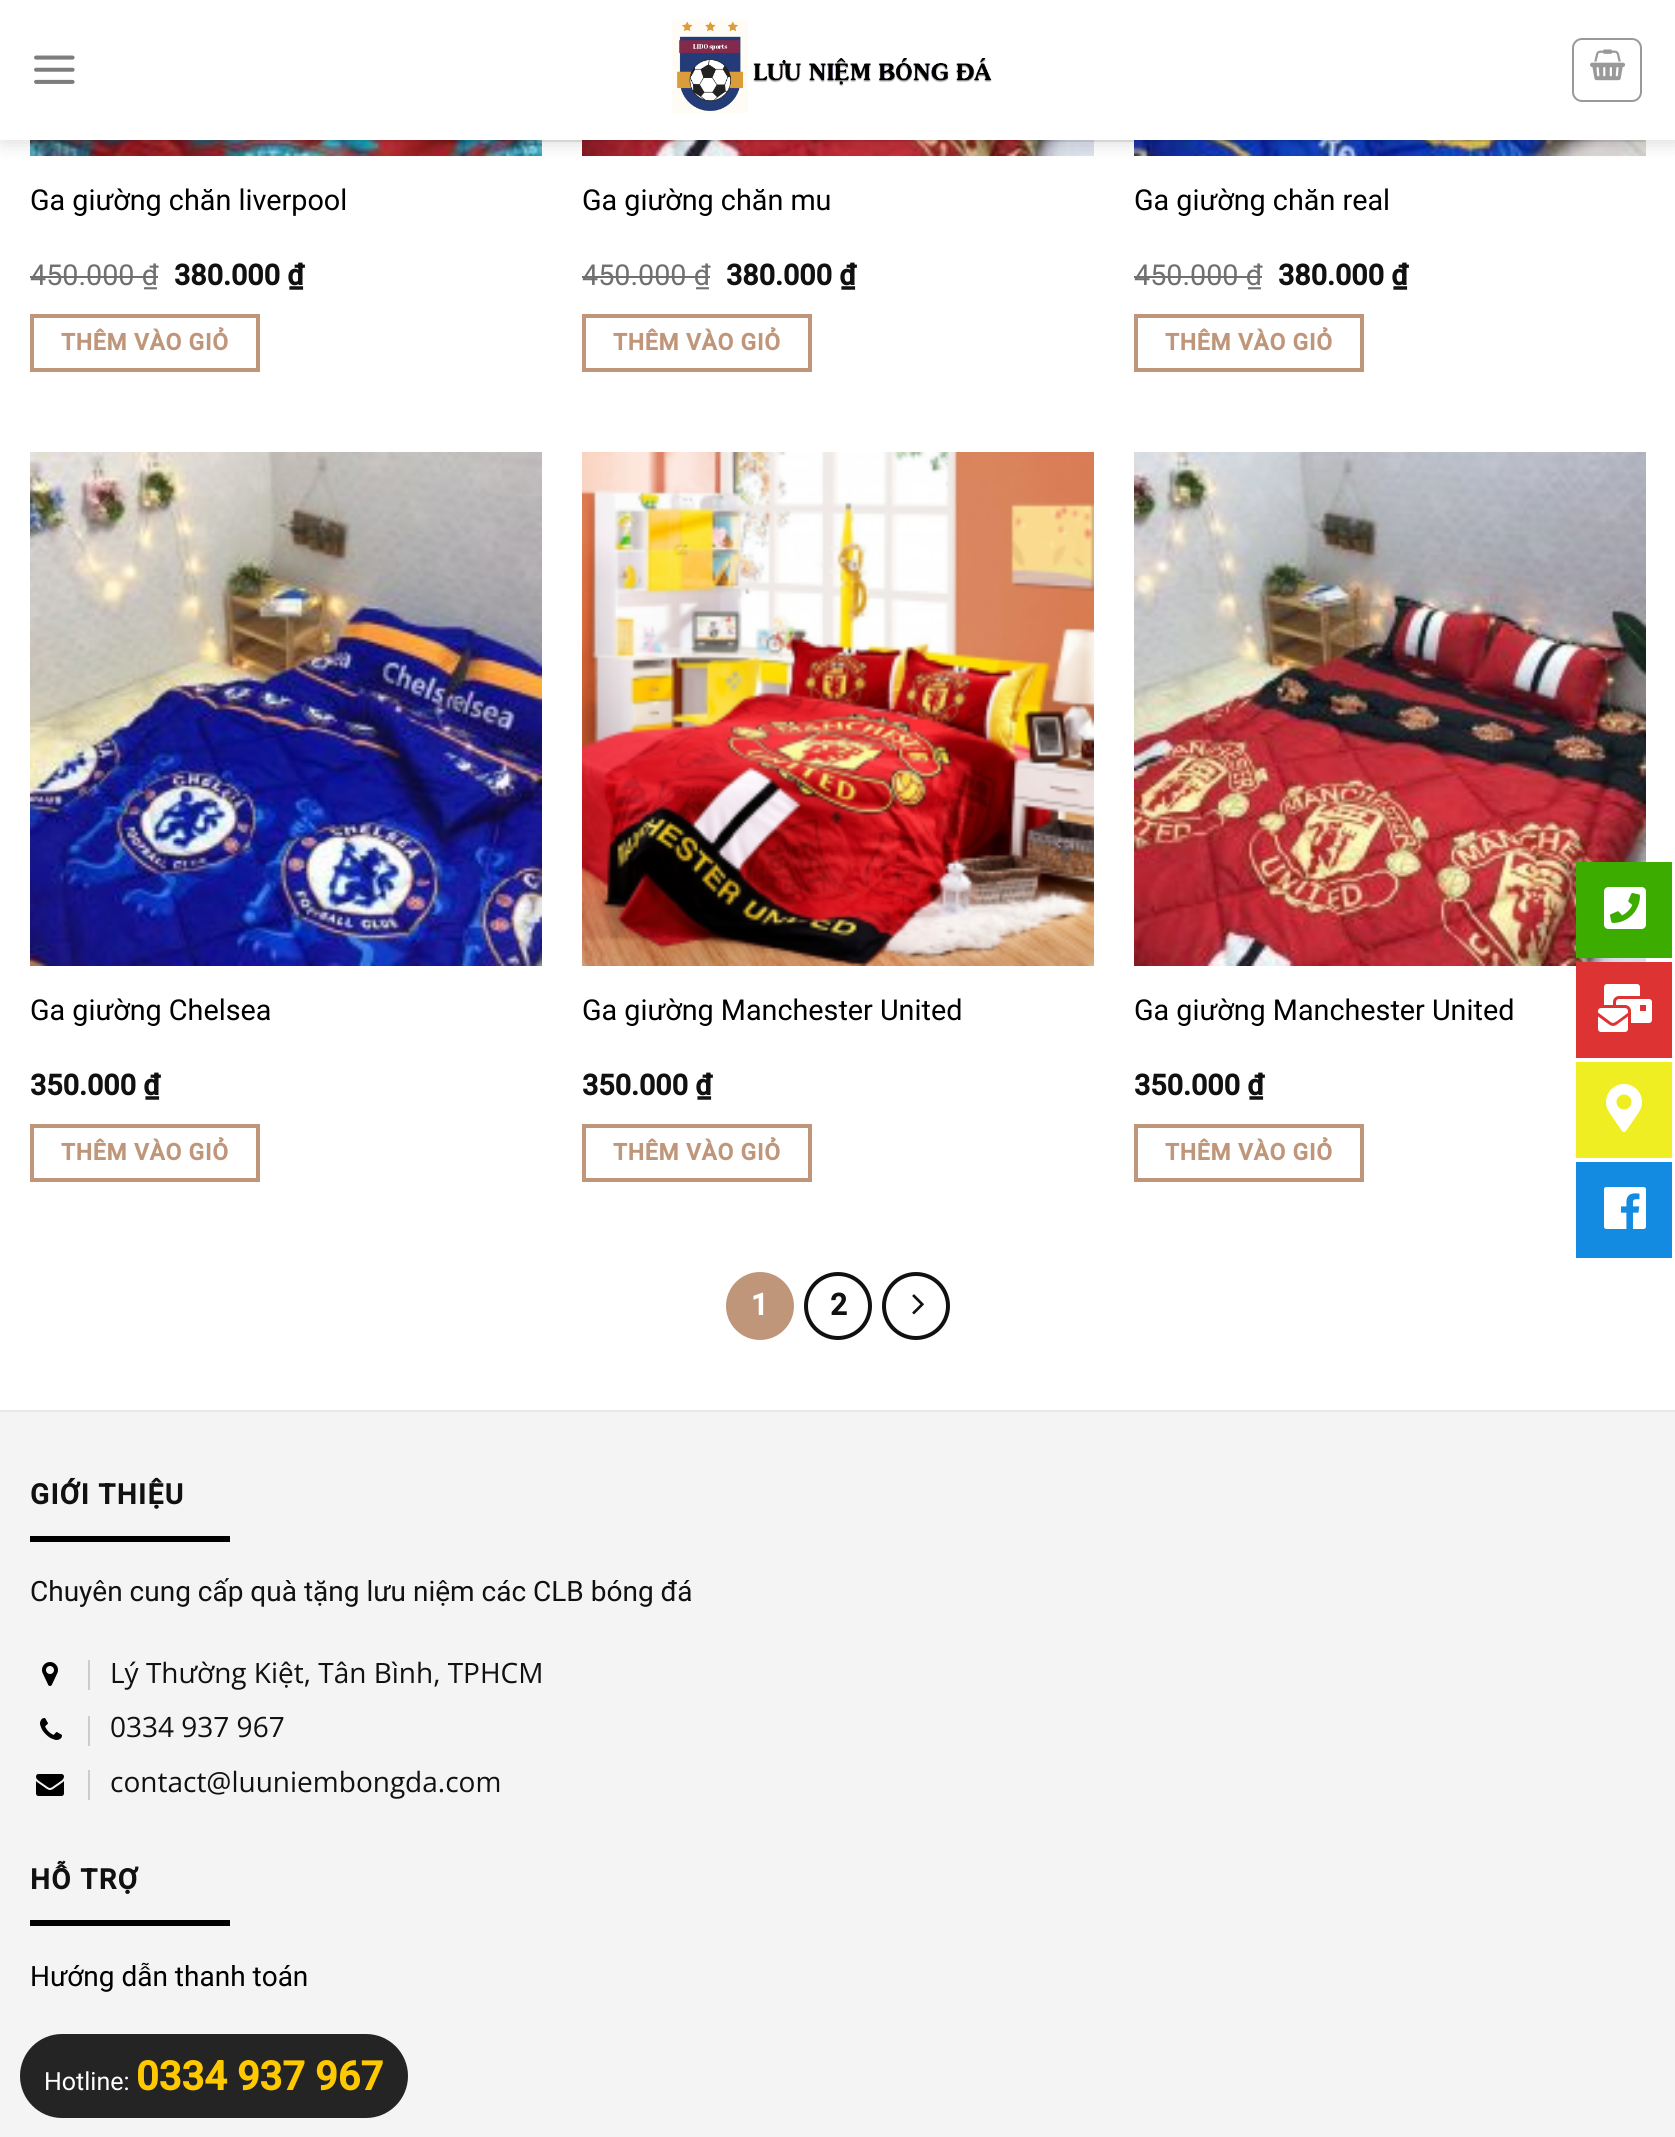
#include <cairo/cairo.h>
#include <math.h>
#include <stddef.h>


static void draw_spaced(cairo_t *cr, double x, double y, const char *s, double letter, double word) {
  cairo_move_to(cr, x, y);
  while (*s) {
    char ch[5] = {0};
    int n = 0;
    do ch[n++] = *s++; while ((*s & 0xC0) == 0x80);
    cairo_show_text(cr, ch);
    cairo_rel_move_to(cr, letter + word * (*ch == ' '), 0);
  }
}

static void rounded_rect(cairo_t *cr, double x, double y, double w, double h, double r) {
  cairo_new_sub_path(cr);
  cairo_arc(cr, x + w - r, y + h - r, r, 0, M_PI / 2);
  cairo_arc(cr, x + r, y + h - r, r, M_PI / 2, M_PI);
  cairo_arc(cr, x + r, y + r, r, M_PI, 1.5 * M_PI);
  cairo_arc(cr, x + w - r, y + r, r, 1.5 * M_PI, 2 * M_PI);
  cairo_close_path(cr);
}

static void draw_shadow(cairo_t *cr, double x, double y, double w, double h, double r, double blur, double alpha) {
  cairo_push_group_with_content(cr, CAIRO_CONTENT_ALPHA);
  cairo_set_operator(cr, CAIRO_OPERATOR_SOURCE);
  for (int i = 15; i >= -15 && fmin(w, h) + blur * i / 3 > 0; i -= 2) {
    double e = blur * i / 6;
    cairo_set_source_rgba(cr, 0, 0, 0, alpha * erfc((i - 1) / 8.5) / 2);
    rounded_rect(cr, x - e, y - e, w + 2 * e, h + 2 * e, fmax(0, fmin(r + e + blur * .6, fmin(w, h) / 2 + e)));
    cairo_fill(cr);
  }
  cairo_pattern_t *soft = cairo_pop_group(cr);
  cairo_mask(cr, soft);
  cairo_pattern_destroy(soft);
}

static void draw_image(cairo_t *cr, const char *path, double x, double y, double w, double h) {
  cairo_surface_t *image = cairo_image_surface_create_from_png(path);
  cairo_save(cr);
  cairo_set_source_surface(cr, image, x, y);
  cairo_rectangle(cr, x, y, w, h);
  cairo_fill(cr);
  cairo_restore(cr);
  cairo_surface_destroy(image);
}

static void draw(cairo_t *cr) {
  cairo_set_source_rgb(cr, 1, 1, 1);
  cairo_paint(cr);
  draw_image(cr, "images/4.png", 30, 140, 512, 16);
  draw_image(cr, "images/5.png", 582, 140, 512, 16);
  draw_image(cr, "images/6.png", 1134, 140, 512, 16);
  cairo_set_source_rgb(cr, 0, 0, 0);
  draw_shadow(cr, 2, 2, 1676, 140, 0, 10, 0.15);
  cairo_set_source_rgb(cr, 1, 1, 1);
  cairo_rectangle(cr, 0, 0, 1675, 140);
  cairo_fill(cr);
  draw_image(cr, "images/1.png", 34, 55, 41, 29);
  draw_image(cr, "images/2.png", 672, 19, 320, 94);
  rounded_rect(cr, 1573, 39, 68, 62, 9);
  cairo_set_source_rgb(cr, 153 / 255.0, 153 / 255.0, 153 / 255.0);
  cairo_stroke(cr);
  draw_image(cr, "images/3.png", 1590, 49, 36, 32);
  cairo_set_source_rgba(cr, 17 / 255.0, 17 / 255.0, 17 / 255.0, 0.1);
  cairo_rectangle(cr, 30, 140, 1616, 2);
  cairo_fill(cr);
  cairo_set_source_rgb(cr, 112 / 255.0, 112 / 255.0, 112 / 255.0);
  cairo_rectangle(cr, 30, 276, 128, 2);
  cairo_fill(cr);
  cairo_rectangle(cr, 32, 316, 226, 54);
  cairo_set_source_rgb(cr, 191 / 255.0, 150 / 255.0, 122 / 255.0);
  cairo_set_line_width(cr, 4);
  cairo_stroke(cr);
  cairo_set_source_rgb(cr, 112 / 255.0, 112 / 255.0, 112 / 255.0);
  cairo_rectangle(cr, 582, 276, 128, 2);
  cairo_fill(cr);
  cairo_rectangle(cr, 584, 316, 226, 54);
  cairo_set_source_rgb(cr, 191 / 255.0, 150 / 255.0, 122 / 255.0);
  cairo_stroke(cr);
  cairo_set_source_rgb(cr, 112 / 255.0, 112 / 255.0, 112 / 255.0);
  cairo_rectangle(cr, 1134, 276, 128, 2);
  cairo_fill(cr);
  cairo_rectangle(cr, 1136, 316, 226, 54);
  cairo_set_source_rgb(cr, 191 / 255.0, 150 / 255.0, 122 / 255.0);
  cairo_stroke(cr);
  draw_image(cr, "images/7.png", 30, 452, 512, 514);
  cairo_rectangle(cr, 32, 1126, 226, 54);
  cairo_stroke(cr);
  draw_image(cr, "images/8.png", 582, 452, 512, 514);
  cairo_rectangle(cr, 584, 1126, 226, 54);
  cairo_stroke(cr);
  draw_image(cr, "images/9.png", 1134, 452, 512, 514);
  cairo_rectangle(cr, 1136, 1126, 226, 54);
  cairo_stroke(cr);
  cairo_arc(cr, 760, 1306, 32, 0, 2 * M_PI);
  cairo_fill_preserve(cr);
  cairo_stroke(cr);
  cairo_arc(cr, 838, 1306, 32, 0, 2 * M_PI);
  cairo_set_source_rgb(cr, 17 / 255.0, 17 / 255.0, 17 / 255.0);
  cairo_stroke(cr);
  cairo_arc(cr, 916, 1306, 32, 0, 2 * M_PI);
  cairo_stroke(cr);
  draw_image(cr, "images/10.png", 912, 1294, 12, 21);
  cairo_set_source_rgb(cr, 244 / 255.0, 244 / 255.0, 244 / 255.0);
  cairo_rectangle(cr, 0, 1412, 1675, 725);
  cairo_fill(cr);
  cairo_set_source_rgb(cr, 232 / 255.0, 232 / 255.0, 232 / 255.0);
  cairo_rectangle(cr, 0, 1410, 1675, 2);
  cairo_fill(cr);
  cairo_set_source_rgb(cr, 0, 0, 0);
  cairo_rectangle(cr, 30, 1536, 200, 6);
  cairo_fill(cr);
  draw_image(cr, "images/11.png", 42, 1662, 16, 24);
  cairo_set_source_rgb(cr, 204 / 255.0, 204 / 255.0, 204 / 255.0);
  cairo_rectangle(cr, 88, 1660, 2, 30);
  cairo_fill(cr);
  draw_image(cr, "images/12.png", 40, 1718, 22, 22);
  cairo_rectangle(cr, 88, 1716, 2, 30);
  cairo_fill(cr);
  draw_image(cr, "images/13.png", 36, 1774, 28, 22);
  cairo_rectangle(cr, 88, 1770, 2, 30);
  cairo_fill(cr);
  cairo_set_source_rgb(cr, 0, 0, 0);
  cairo_rectangle(cr, 30, 1920, 200, 6);
  cairo_fill(cr);
  cairo_set_source_rgb(cr, 36 / 255.0, 36 / 255.0, 36 / 255.0);
  rounded_rect(cr, 20, 2034, 388, 84, 42);
  cairo_fill(cr);
  cairo_set_source_rgb(cr, 60 / 255.0, 173 / 255.0, 0);
  cairo_rectangle(cr, 1576, 862, 96, 96);
  cairo_fill(cr);
  draw_image(cr, "images/14.png", 1604, 887, 42, 42);
  cairo_set_source_rgb(cr, 221 / 255.0, 51 / 255.0, 51 / 255.0);
  cairo_rectangle(cr, 1576, 962, 96, 96);
  cairo_fill(cr);
  draw_image(cr, "images/15.png", 1598, 984, 54, 48);
  cairo_set_source_rgb(cr, 238 / 255.0, 238 / 255.0, 34 / 255.0);
  cairo_rectangle(cr, 1576, 1062, 96, 96);
  cairo_fill(cr);
  draw_image(cr, "images/16.png", 1606, 1084, 36, 48);
  cairo_set_source_rgb(cr, 18 / 255.0, 139 / 255.0, 224 / 255.0);
  cairo_rectangle(cr, 1576, 1162, 96, 96);
  cairo_fill(cr);
  draw_image(cr, "images/17.png", 1604, 1187, 42, 42);
  cairo_select_font_face(cr, "Roboto", CAIRO_FONT_SLANT_NORMAL, CAIRO_FONT_WEIGHT_NORMAL);
  cairo_set_font_size(cr, 28.75);
  cairo_set_source_rgb(cr, 0, 0, 0);
  cairo_move_to(cr, 30, 210);
  cairo_show_text(cr, "Ga giường chăn liverpool");
  cairo_set_source_rgb(cr, 112 / 255.0, 112 / 255.0, 112 / 255.0);
  cairo_move_to(cr, 30, 285);
  cairo_show_text(cr, "450.000 ₫");
  cairo_select_font_face(cr, "Roboto", CAIRO_FONT_SLANT_NORMAL, CAIRO_FONT_WEIGHT_BOLD);
  cairo_set_source_rgb(cr, 17 / 255.0, 17 / 255.0, 17 / 255.0);
  cairo_move_to(cr, 174, 285);
  cairo_show_text(cr, "380.000 ₫");
  cairo_set_font_size(cr, 23);
  cairo_set_source_rgb(cr, 191 / 255.0, 150 / 255.0, 122 / 255.0);
  draw_spaced(cr, 61, 350, "THÊM VÀO GIỎ", 0.75, 0);
  cairo_select_font_face(cr, "Roboto", CAIRO_FONT_SLANT_NORMAL, CAIRO_FONT_WEIGHT_NORMAL);
  cairo_set_font_size(cr, 28.75);
  cairo_set_source_rgb(cr, 0, 0, 0);
  cairo_move_to(cr, 582, 210);
  cairo_show_text(cr, "Ga giường chăn mu");
  cairo_set_source_rgb(cr, 112 / 255.0, 112 / 255.0, 112 / 255.0);
  cairo_move_to(cr, 582, 285);
  cairo_show_text(cr, "450.000 ₫");
  cairo_select_font_face(cr, "Roboto", CAIRO_FONT_SLANT_NORMAL, CAIRO_FONT_WEIGHT_BOLD);
  cairo_set_source_rgb(cr, 17 / 255.0, 17 / 255.0, 17 / 255.0);
  cairo_move_to(cr, 726, 285);
  cairo_show_text(cr, "380.000 ₫");
  cairo_set_font_size(cr, 23);
  cairo_set_source_rgb(cr, 191 / 255.0, 150 / 255.0, 122 / 255.0);
  draw_spaced(cr, 613, 350, "THÊM VÀO GIỎ", 0.75, 0);
  cairo_select_font_face(cr, "Roboto", CAIRO_FONT_SLANT_NORMAL, CAIRO_FONT_WEIGHT_NORMAL);
  cairo_set_font_size(cr, 28.75);
  cairo_set_source_rgb(cr, 0, 0, 0);
  cairo_move_to(cr, 1134, 210);
  cairo_show_text(cr, "Ga giường chăn real");
  cairo_set_source_rgb(cr, 112 / 255.0, 112 / 255.0, 112 / 255.0);
  cairo_move_to(cr, 1134, 285);
  cairo_show_text(cr, "450.000 ₫");
  cairo_select_font_face(cr, "Roboto", CAIRO_FONT_SLANT_NORMAL, CAIRO_FONT_WEIGHT_BOLD);
  cairo_set_source_rgb(cr, 17 / 255.0, 17 / 255.0, 17 / 255.0);
  cairo_move_to(cr, 1278, 285);
  cairo_show_text(cr, "380.000 ₫");
  cairo_set_font_size(cr, 23);
  cairo_set_source_rgb(cr, 191 / 255.0, 150 / 255.0, 122 / 255.0);
  draw_spaced(cr, 1165, 350, "THÊM VÀO GIỎ", 0.75, 0);
  cairo_select_font_face(cr, "Roboto", CAIRO_FONT_SLANT_NORMAL, CAIRO_FONT_WEIGHT_NORMAL);
  cairo_set_font_size(cr, 28.75);
  cairo_set_source_rgb(cr, 0, 0, 0);
  cairo_move_to(cr, 30, 1020);
  cairo_show_text(cr, "Ga giường Chelsea");
  cairo_select_font_face(cr, "Roboto", CAIRO_FONT_SLANT_NORMAL, CAIRO_FONT_WEIGHT_BOLD);
  cairo_set_source_rgb(cr, 17 / 255.0, 17 / 255.0, 17 / 255.0);
  cairo_move_to(cr, 30, 1095);
  cairo_show_text(cr, "350.000 ₫");
  cairo_set_font_size(cr, 23);
  cairo_set_source_rgb(cr, 191 / 255.0, 150 / 255.0, 122 / 255.0);
  draw_spaced(cr, 61, 1160, "THÊM VÀO GIỎ", 0.75, 0);
  cairo_select_font_face(cr, "Roboto", CAIRO_FONT_SLANT_NORMAL, CAIRO_FONT_WEIGHT_NORMAL);
  cairo_set_font_size(cr, 28.75);
  cairo_set_source_rgb(cr, 0, 0, 0);
  cairo_move_to(cr, 582, 1020);
  cairo_show_text(cr, "Ga giường Manchester United");
  cairo_select_font_face(cr, "Roboto", CAIRO_FONT_SLANT_NORMAL, CAIRO_FONT_WEIGHT_BOLD);
  cairo_set_source_rgb(cr, 17 / 255.0, 17 / 255.0, 17 / 255.0);
  cairo_move_to(cr, 582, 1095);
  cairo_show_text(cr, "350.000 ₫");
  cairo_set_font_size(cr, 23);
  cairo_set_source_rgb(cr, 191 / 255.0, 150 / 255.0, 122 / 255.0);
  draw_spaced(cr, 613, 1160, "THÊM VÀO GIỎ", 0.75, 0);
  cairo_select_font_face(cr, "Roboto", CAIRO_FONT_SLANT_NORMAL, CAIRO_FONT_WEIGHT_NORMAL);
  cairo_set_font_size(cr, 28.75);
  cairo_set_source_rgb(cr, 0, 0, 0);
  cairo_move_to(cr, 1134, 1020);
  cairo_show_text(cr, "Ga giường Manchester United");
  cairo_select_font_face(cr, "Roboto", CAIRO_FONT_SLANT_NORMAL, CAIRO_FONT_WEIGHT_BOLD);
  cairo_set_source_rgb(cr, 17 / 255.0, 17 / 255.0, 17 / 255.0);
  cairo_move_to(cr, 1134, 1095);
  cairo_show_text(cr, "350.000 ₫");
  cairo_set_font_size(cr, 23);
  cairo_set_source_rgb(cr, 191 / 255.0, 150 / 255.0, 122 / 255.0);
  draw_spaced(cr, 1165, 1160, "THÊM VÀO GIỎ", 0.75, 0);
  cairo_set_font_size(cr, 30);
  cairo_set_source_rgb(cr, 1, 1, 1);
  cairo_move_to(cr, 751, 1315);
  cairo_show_text(cr, "1");
  cairo_set_source_rgb(cr, 17 / 255.0, 17 / 255.0, 17 / 255.0);
  cairo_move_to(cr, 830, 1315);
  cairo_show_text(cr, "2");
  cairo_set_font_size(cr, 28);
  draw_spaced(cr, 30, 1504, "GIỚI THIỆU", 1.4, 0);
  cairo_select_font_face(cr, "Roboto", CAIRO_FONT_SLANT_NORMAL, CAIRO_FONT_WEIGHT_NORMAL);
  cairo_move_to(cr, 30, 1601);
  cairo_show_text(cr, "Chuyên cung cấp quà tặng lưu niệm các CLB bóng đá");
  cairo_select_font_face(cr, "Open Sans", CAIRO_FONT_SLANT_NORMAL, CAIRO_FONT_WEIGHT_NORMAL);
  cairo_move_to(cr, 110, 1683);
  cairo_show_text(cr, "Lý Thường Kiệt, Tân Bình, TPHCM");
  cairo_move_to(cr, 110, 1737);
  cairo_show_text(cr, "0334 937 967");
  cairo_move_to(cr, 110, 1792);
  cairo_show_text(cr, "contact@luuniembongda.com");
  cairo_select_font_face(cr, "Roboto", CAIRO_FONT_SLANT_NORMAL, CAIRO_FONT_WEIGHT_BOLD);
  draw_spaced(cr, 30, 1889, "HỖ TRỢ", 1.4, 0);
  cairo_select_font_face(cr, "Roboto", CAIRO_FONT_SLANT_NORMAL, CAIRO_FONT_WEIGHT_NORMAL);
  cairo_set_source_rgb(cr, 0, 0, 0);
  cairo_move_to(cr, 30, 1986);
  cairo_show_text(cr, "Hướng dẫn thanh toán");
  cairo_set_font_size(cr, 25);
  cairo_set_source_rgb(cr, 1, 1, 1);
  cairo_move_to(cr, 44, 2090);
  cairo_show_text(cr, "Hotline:");
  cairo_select_font_face(cr, "Roboto", CAIRO_FONT_SLANT_NORMAL, CAIRO_FONT_WEIGHT_BOLD);
  cairo_set_font_size(cr, 40);
  cairo_set_source_rgb(cr, 254 / 255.0, 201 / 255.0, 1 / 255.0);
  cairo_move_to(cr, 136, 2090);
  cairo_show_text(cr, "0334 937 967");
}

int main(void) {
  cairo_surface_t *surface = cairo_image_surface_create(CAIRO_FORMAT_RGB24, 1675, 2137);
  cairo_t *cr = cairo_create(surface);
  cairo_font_options_t *options = cairo_font_options_create();
  cairo_font_options_set_hint_metrics(options, CAIRO_HINT_METRICS_OFF);
  cairo_font_options_set_hint_style(options, CAIRO_HINT_STYLE_NONE);
  cairo_set_font_options(cr, options);
  cairo_set_miter_limit(cr, 4);
  draw(cr);
  cairo_surface_write_to_png(surface, "out.png");
  cairo_font_options_destroy(options);
  cairo_destroy(cr);
  cairo_surface_destroy(surface);
  return 0;
}
